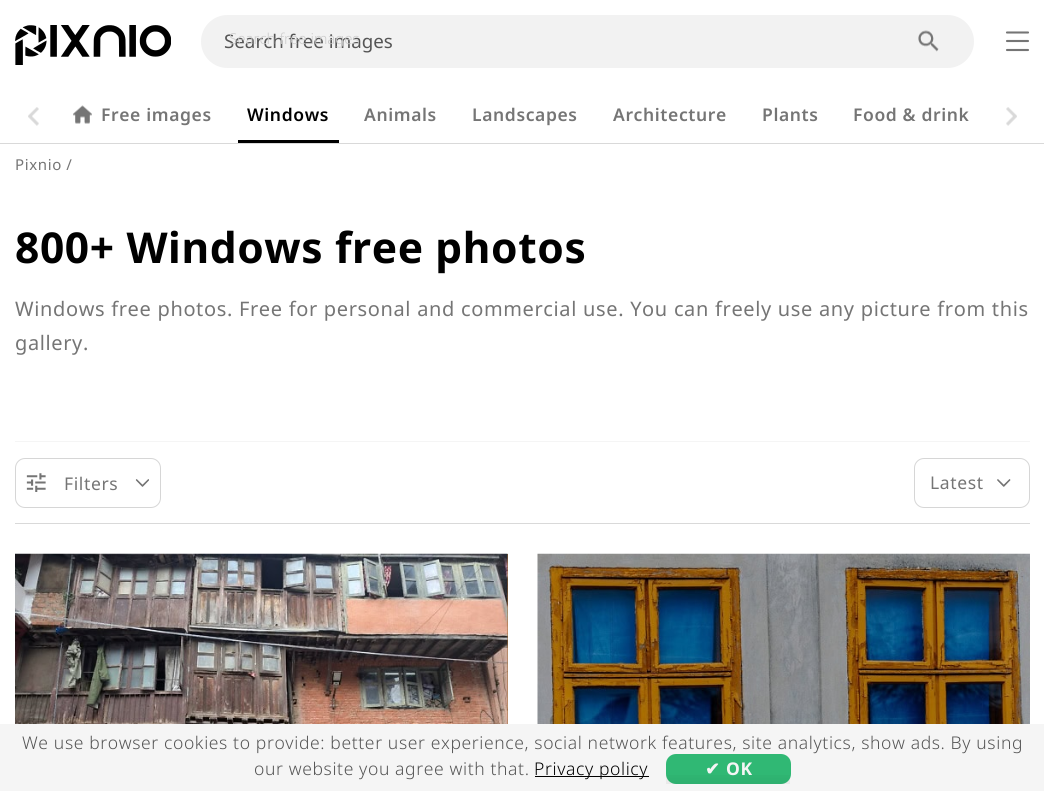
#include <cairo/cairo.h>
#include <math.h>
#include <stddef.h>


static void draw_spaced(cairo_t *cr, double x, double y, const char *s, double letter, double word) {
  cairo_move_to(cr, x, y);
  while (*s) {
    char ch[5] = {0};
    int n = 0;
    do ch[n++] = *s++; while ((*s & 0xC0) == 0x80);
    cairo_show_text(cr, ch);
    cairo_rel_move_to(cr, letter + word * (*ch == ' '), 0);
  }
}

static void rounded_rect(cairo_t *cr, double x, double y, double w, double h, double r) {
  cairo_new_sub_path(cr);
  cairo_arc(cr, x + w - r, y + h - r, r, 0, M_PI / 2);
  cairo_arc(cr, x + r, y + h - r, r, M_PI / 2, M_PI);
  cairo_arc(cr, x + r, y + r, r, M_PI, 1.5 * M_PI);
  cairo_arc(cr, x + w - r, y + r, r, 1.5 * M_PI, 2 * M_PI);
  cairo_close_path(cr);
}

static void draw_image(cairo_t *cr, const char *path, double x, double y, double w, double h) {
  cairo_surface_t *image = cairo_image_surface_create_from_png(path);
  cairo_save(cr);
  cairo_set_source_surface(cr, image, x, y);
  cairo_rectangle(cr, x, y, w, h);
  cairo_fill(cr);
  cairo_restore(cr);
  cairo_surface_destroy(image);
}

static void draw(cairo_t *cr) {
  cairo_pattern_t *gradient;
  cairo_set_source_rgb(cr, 1, 1, 1);
  cairo_paint(cr);
  cairo_set_source_rgb(cr, 217 / 255.0, 217 / 255.0, 217 / 255.0);
  cairo_rectangle(cr, 0, 143, 1044, 1);
  cairo_fill(cr);
  draw_image(cr, "images/1.png", 15, 25, 156, 40);
  cairo_set_source_rgb(cr, 242 / 255.0, 242 / 255.0, 242 / 255.0);
  rounded_rect(cr, 201, 15, 773, 53, 26.5);
  cairo_fill(cr);
  draw_image(cr, "images/2.png", 918, 30, 21, 22);
  cairo_new_path(cr);
  cairo_move_to(cr, 1007, 32.5);
  cairo_line_to(cr, 1028, 32.5);
  cairo_move_to(cr, 1007, 41);
  cairo_line_to(cr, 1028, 41);
  cairo_move_to(cr, 1028, 50);
  cairo_line_to(cr, 1007, 50);
  cairo_set_source_rgb(cr, 117 / 255.0, 117 / 255.0, 117 / 255.0);
  cairo_set_line_width(cr, 2.1);
  cairo_set_line_cap(cr, CAIRO_LINE_CAP_ROUND);
  cairo_stroke(cr);
  draw_image(cr, "images/3.png", 28, 107, 11, 19);
  draw_image(cr, "images/4.png", 73, 105, 19, 19);
  cairo_set_source_rgb(cr, 0, 0, 0);
  cairo_rectangle(cr, 238, 140, 101, 3);
  cairo_fill(cr);
  draw_image(cr, "images/5.png", 1006, 107, 11, 19);
  cairo_set_source_rgb(cr, 245 / 255.0, 245 / 255.0, 245 / 255.0);
  cairo_rectangle(cr, 15, 441, 1015, 1);
  cairo_fill(cr);
  cairo_set_source_rgb(cr, 217 / 255.0, 217 / 255.0, 217 / 255.0);
  cairo_rectangle(cr, 15, 523, 1015, 1);
  cairo_fill(cr);
  rounded_rect(cr, 15.5, 458.5, 145, 49, 9.5);
  cairo_set_source_rgb(cr, 214 / 255.0, 214 / 255.0, 214 / 255.0);
  cairo_set_line_width(cr, 1);
  cairo_set_line_cap(cr, CAIRO_LINE_CAP_BUTT);
  cairo_stroke(cr);
  draw_image(cr, "images/6.png", 26, 473, 20, 19);
  draw_image(cr, "images/7.png", 135, 479, 14, 8);
  rounded_rect(cr, 914.5, 458.5, 115, 49, 9.5);
  cairo_stroke(cr);
  draw_image(cr, "images/8.png", 997, 479, 14, 8);
  cairo_set_source_rgb(cr, 158 / 255.0, 104 / 255.0, 51 / 255.0);
  cairo_rectangle(cr, 507, 554, 1, 170);
  cairo_fill(cr);
  draw_image(cr, "images/9.png", 15, 553, 493, 171);
  draw_image(cr, "images/10.png", 537, 553, 493, 171);
  cairo_set_source_rgb(cr, 245 / 255.0, 245 / 255.0, 245 / 255.0);
  cairo_rectangle(cr, 0, 724, 1044, 67);
  cairo_fill(cr);
  cairo_set_source_rgb(cr, 0, 0, 0);
  cairo_rectangle(cr, 535, 776, 114, 1);
  cairo_fill(cr);
  cairo_set_source_rgb(cr, 48 / 255.0, 184 / 255.0, 116 / 255.0);
  rounded_rect(cr, 666, 754, 125, 30, 10);
  cairo_fill(cr);
  gradient = cairo_pattern_create_linear(729, 754, 729, 784);
  cairo_pattern_add_color_stop_rgba(gradient, 0.5, 0, 0, 0, 0);
  cairo_pattern_add_color_stop_rgba(gradient, 1, 0, 0, 0, 0.05);
  cairo_set_source(cr, gradient);
  cairo_pattern_destroy(gradient);
  cairo_rectangle(cr, 666, 775, 124, 9);
  cairo_fill(cr);
  cairo_select_font_face(cr, "Noto Sans", CAIRO_FONT_SLANT_NORMAL, CAIRO_FONT_WEIGHT_NORMAL);
  cairo_set_font_size(cr, 18.75);
  cairo_set_source_rgb(cr, 85 / 255.0, 85 / 255.0, 85 / 255.0);
  cairo_move_to(cr, 224, 48);
  cairo_show_text(cr, "Search free images");
  cairo_select_font_face(cr, "Noto Sans Light", CAIRO_FONT_SLANT_NORMAL, CAIRO_FONT_WEIGHT_NORMAL);
  cairo_set_font_size(cr, 15);
  cairo_set_source_rgb(cr, 204 / 255.0, 204 / 255.0, 204 / 255.0);
  cairo_move_to(cr, 229, 44);
  cairo_show_text(cr, "Search free images");
  cairo_select_font_face(cr, "Noto Sans SemiBold", CAIRO_FONT_SLANT_NORMAL, CAIRO_FONT_WEIGHT_NORMAL);
  cairo_set_font_size(cr, 17.5);
  cairo_set_source_rgb(cr, 117 / 255.0, 117 / 255.0, 117 / 255.0);
  draw_spaced(cr, 101, 121, "Free images", 0.62, 0);
  cairo_set_source_rgb(cr, 0, 0, 0);
  draw_spaced(cr, 247, 121, "Windows", 0.62, 0);
  cairo_set_source_rgb(cr, 117 / 255.0, 117 / 255.0, 117 / 255.0);
  draw_spaced(cr, 364, 121, "Animals", 0.62, 0);
  draw_spaced(cr, 472, 121, "Landscapes", 0.62, 0);
  draw_spaced(cr, 613, 121, "Architecture", 0.62, 0);
  draw_spaced(cr, 762, 121, "Plants", 0.62, 0);
  draw_spaced(cr, 853, 121, "Food & drink", 0.62, 0);
  cairo_select_font_face(cr, "Noto Sans", CAIRO_FONT_SLANT_NORMAL, CAIRO_FONT_WEIGHT_NORMAL);
  cairo_set_font_size(cr, 15);
  draw_spaced(cr, 15, 170, "Pixnio /", 0.62, 0);
  cairo_select_font_face(cr, "Noto Sans", CAIRO_FONT_SLANT_NORMAL, CAIRO_FONT_WEIGHT_BOLD);
  cairo_set_font_size(cr, 42.5);
  cairo_set_source_rgb(cr, 0, 0, 0);
  draw_spaced(cr, 15, 263, "800+ Windows free photos", 0.62, 0);
  cairo_select_font_face(cr, "Noto Sans", CAIRO_FONT_SLANT_NORMAL, CAIRO_FONT_WEIGHT_NORMAL);
  cairo_set_font_size(cr, 20);
  cairo_set_source_rgb(cr, 117 / 255.0, 117 / 255.0, 117 / 255.0);
  draw_spaced(cr, 15, 316, "Windows free photos. Free for personal and commercial use. You can freely use any picture from this", 0.62, 0.25);
  draw_spaced(cr, 15, 350, "gallery.", 0.62, 0);
  cairo_set_font_size(cr, 17.5);
  draw_spaced(cr, 64, 490, "Filters", 0.62, 0);
  draw_spaced(cr, 930, 489, "Latest", 0.62, 0);
  cairo_select_font_face(cr, "Noto Sans Light", CAIRO_FONT_SLANT_NORMAL, CAIRO_FONT_WEIGHT_NORMAL);
  cairo_set_source_rgb(cr, 85 / 255.0, 85 / 255.0, 85 / 255.0);
  draw_spaced(cr, 22, 749, "We use browser cookies to provide: better user experience, social network features, site analytics, show ads. By using", 0.62, 0);
  draw_spaced(cr, 254, 775, "our website you agree with that.", 0.62, 0);
  cairo_set_source_rgb(cr, 0, 0, 0);
  draw_spaced(cr, 534, 775, "Privacy policy", 0.62, 0);
  cairo_select_font_face(cr, "DejaVu Sans", CAIRO_FONT_SLANT_NORMAL, CAIRO_FONT_WEIGHT_BOLD);
  cairo_set_source_rgb(cr, 245 / 255.0, 245 / 255.0, 245 / 255.0);
  draw_spaced(cr, 705, 775, "✔", 0.62, 0);
  cairo_select_font_face(cr, "Noto Sans", CAIRO_FONT_SLANT_NORMAL, CAIRO_FONT_WEIGHT_BOLD);
  draw_spaced(cr, 726, 775, "OK", 0.62, 0);
}

int main(void) {
  cairo_surface_t *surface = cairo_image_surface_create(CAIRO_FORMAT_RGB24, 1044, 791);
  cairo_t *cr = cairo_create(surface);
  cairo_font_options_t *options = cairo_font_options_create();
  cairo_font_options_set_hint_metrics(options, CAIRO_HINT_METRICS_OFF);
  cairo_font_options_set_hint_style(options, CAIRO_HINT_STYLE_NONE);
  cairo_set_font_options(cr, options);
  cairo_set_miter_limit(cr, 4);
  draw(cr);
  cairo_surface_write_to_png(surface, "out.png");
  cairo_font_options_destroy(options);
  cairo_destroy(cr);
  cairo_surface_destroy(surface);
  return 0;
}
